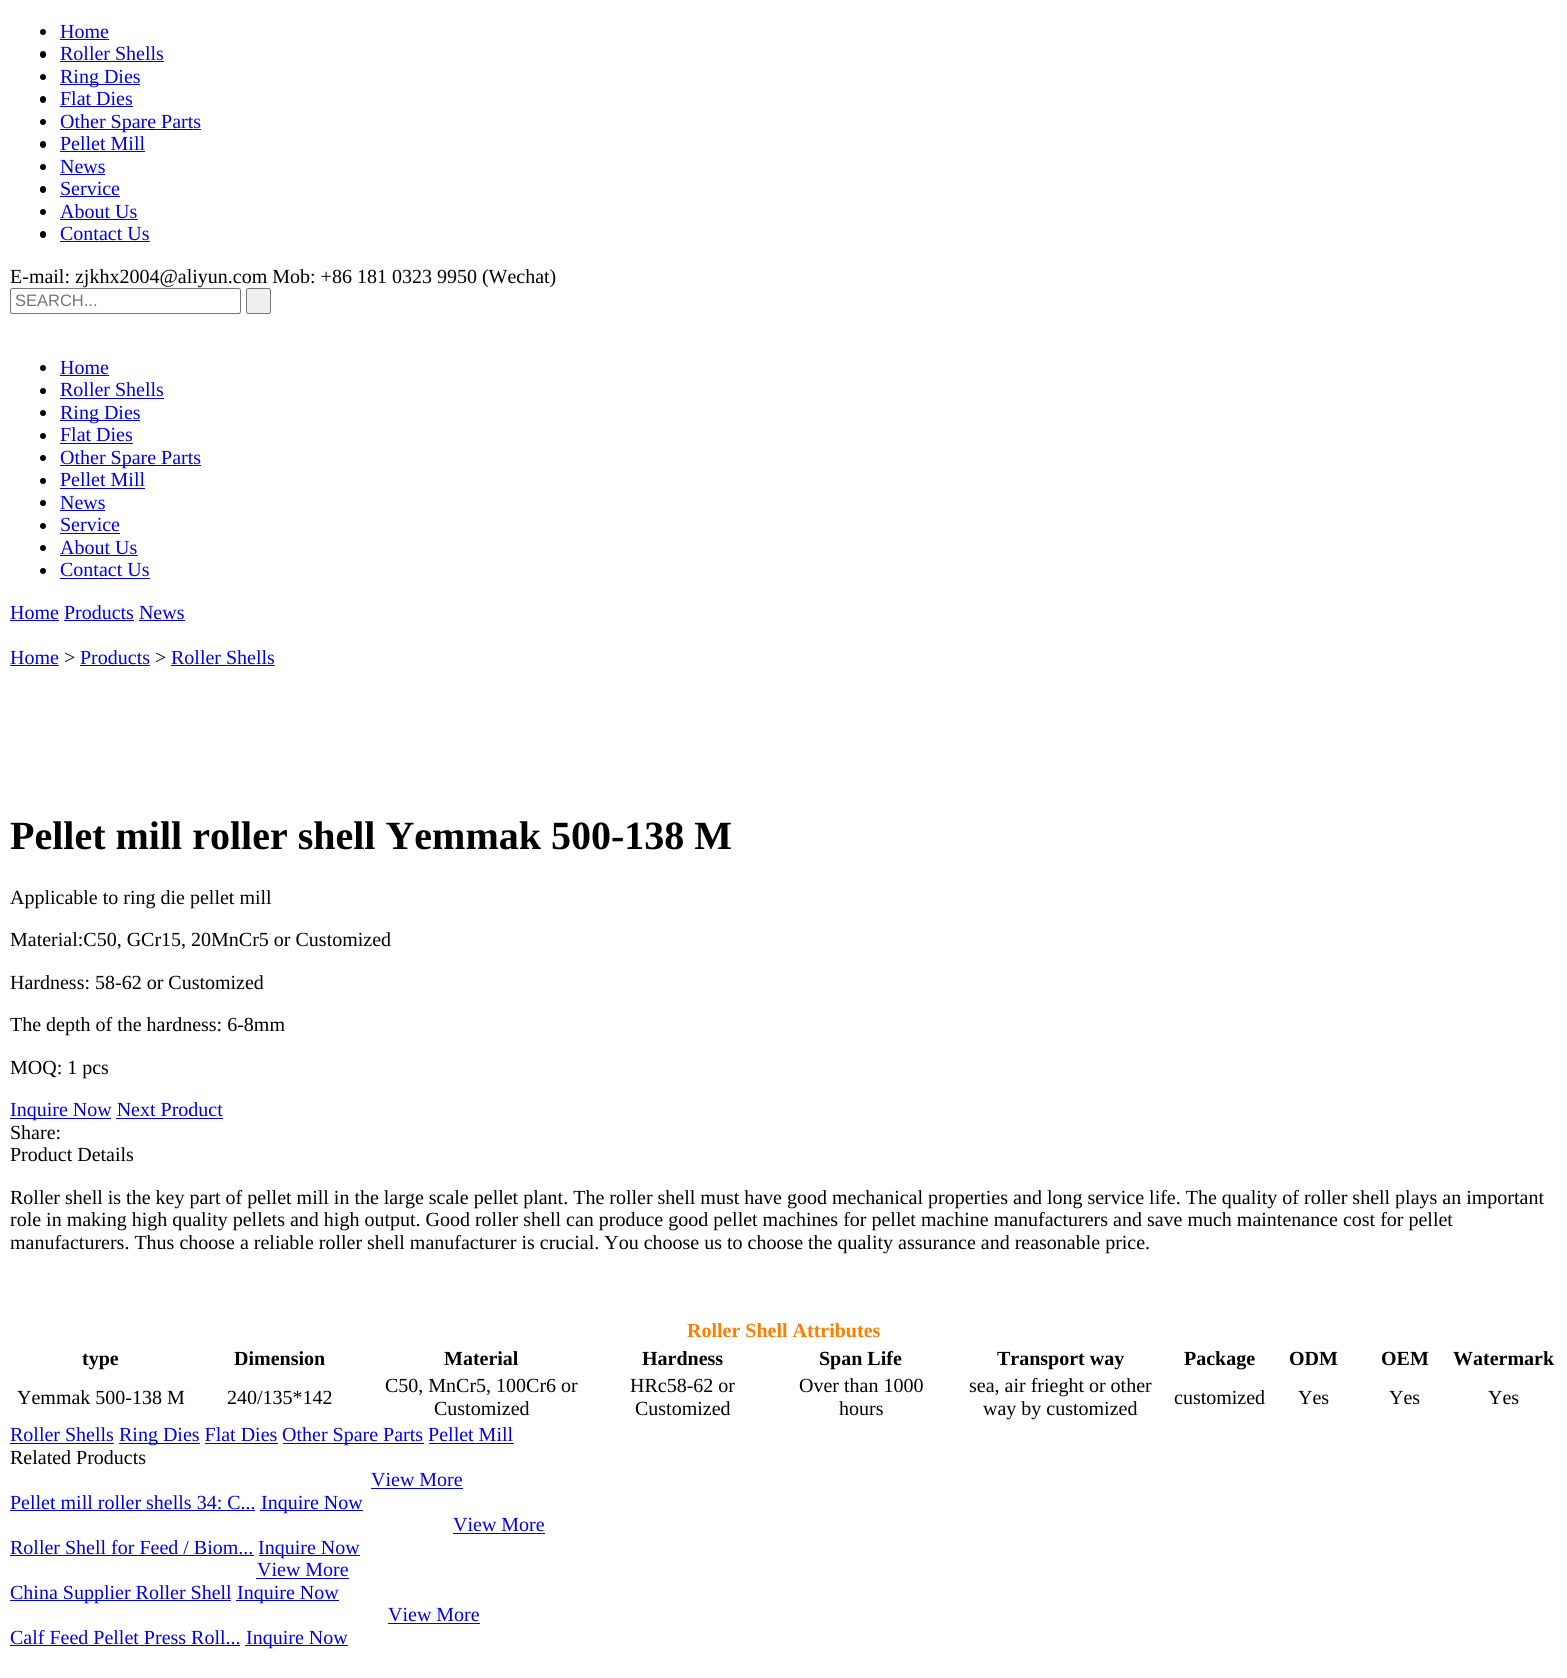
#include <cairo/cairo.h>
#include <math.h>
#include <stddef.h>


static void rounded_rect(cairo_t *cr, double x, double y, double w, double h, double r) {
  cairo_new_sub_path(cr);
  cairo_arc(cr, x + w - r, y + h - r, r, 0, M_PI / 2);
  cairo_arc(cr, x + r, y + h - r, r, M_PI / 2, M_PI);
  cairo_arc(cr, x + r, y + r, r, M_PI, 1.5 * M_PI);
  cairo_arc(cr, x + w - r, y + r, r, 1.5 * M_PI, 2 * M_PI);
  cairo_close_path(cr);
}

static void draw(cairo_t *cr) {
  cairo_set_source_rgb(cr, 1, 1, 1);
  cairo_paint(cr);
  cairo_set_source_rgb(cr, 0, 0, 0);
  cairo_arc(cr, 43, 32, 3, 0, 2 * M_PI);
  cairo_fill(cr);
  cairo_set_source_rgb(cr, 0, 0, 238 / 255.0);
  cairo_rectangle(cr, 60, 39, 49, 1);
  cairo_fill(cr);
  cairo_set_source_rgb(cr, 0, 0, 0);
  rounded_rect(cr, 40, 51, 6, 7, 3);
  cairo_fill(cr);
  cairo_set_source_rgb(cr, 0, 0, 238 / 255.0);
  cairo_rectangle(cr, 60, 61, 104, 1);
  cairo_fill(cr);
  cairo_set_source_rgb(cr, 0, 0, 0);
  cairo_arc(cr, 43, 77, 3, 0, 2 * M_PI);
  cairo_fill(cr);
  cairo_set_source_rgb(cr, 0, 0, 238 / 255.0);
  cairo_rectangle(cr, 60, 84, 80, 1);
  cairo_fill(cr);
  cairo_set_source_rgb(cr, 0, 0, 0);
  rounded_rect(cr, 40, 96, 6, 7, 3);
  cairo_fill(cr);
  cairo_set_source_rgb(cr, 0, 0, 238 / 255.0);
  cairo_rectangle(cr, 60, 106, 73, 1);
  cairo_fill(cr);
  cairo_set_source_rgb(cr, 0, 0, 0);
  cairo_arc(cr, 43, 122, 3, 0, 2 * M_PI);
  cairo_fill(cr);
  cairo_set_source_rgb(cr, 0, 0, 238 / 255.0);
  cairo_rectangle(cr, 60, 129, 141, 1);
  cairo_fill(cr);
  cairo_set_source_rgb(cr, 0, 0, 0);
  rounded_rect(cr, 40, 141, 6, 7, 3);
  cairo_fill(cr);
  cairo_set_source_rgb(cr, 0, 0, 238 / 255.0);
  cairo_rectangle(cr, 60, 151, 85, 1);
  cairo_fill(cr);
  cairo_set_source_rgb(cr, 0, 0, 0);
  cairo_arc(cr, 43, 167, 3, 0, 2 * M_PI);
  cairo_fill(cr);
  cairo_set_source_rgb(cr, 0, 0, 238 / 255.0);
  cairo_rectangle(cr, 60, 174, 45, 1);
  cairo_fill(cr);
  cairo_set_source_rgb(cr, 0, 0, 0);
  rounded_rect(cr, 40, 186, 6, 7, 3);
  cairo_fill(cr);
  cairo_set_source_rgb(cr, 0, 0, 238 / 255.0);
  cairo_rectangle(cr, 60, 196, 60, 1);
  cairo_fill(cr);
  cairo_set_source_rgb(cr, 0, 0, 0);
  cairo_arc(cr, 43, 212, 3, 0, 2 * M_PI);
  cairo_fill(cr);
  cairo_set_source_rgb(cr, 0, 0, 238 / 255.0);
  cairo_rectangle(cr, 60, 219, 78, 1);
  cairo_fill(cr);
  cairo_set_source_rgb(cr, 0, 0, 0);
  rounded_rect(cr, 40, 231, 6, 7, 3);
  cairo_fill(cr);
  cairo_set_source_rgb(cr, 0, 0, 238 / 255.0);
  cairo_rectangle(cr, 60, 241, 90, 1);
  cairo_fill(cr);
  rounded_rect(cr, 10.5, 288.5, 230, 25, 2);
  cairo_set_source_rgb(cr, 118 / 255.0, 118 / 255.0, 118 / 255.0);
  cairo_set_line_width(cr, 1);
  cairo_stroke(cr);
  cairo_set_source_rgb(cr, 239 / 255.0, 239 / 255.0, 239 / 255.0);
  rounded_rect(cr, 246.5, 288.5, 24, 25, 2);
  cairo_fill_preserve(cr);
  cairo_set_source_rgb(cr, 118 / 255.0, 118 / 255.0, 118 / 255.0);
  cairo_stroke(cr);
  cairo_set_source_rgb(cr, 0, 0, 0);
  cairo_arc(cr, 43, 368, 3, 0, 2 * M_PI);
  cairo_fill(cr);
  cairo_set_source_rgb(cr, 0, 0, 238 / 255.0);
  cairo_rectangle(cr, 60, 375, 49, 1);
  cairo_fill(cr);
  cairo_set_source_rgb(cr, 0, 0, 0);
  cairo_arc(cr, 43, 391, 3, 0, 2 * M_PI);
  cairo_fill(cr);
  cairo_set_source_rgb(cr, 0, 0, 238 / 255.0);
  cairo_rectangle(cr, 60, 398, 104, 1);
  cairo_fill(cr);
  cairo_set_source_rgb(cr, 0, 0, 0);
  cairo_arc(cr, 43, 413, 3, 0, 2 * M_PI);
  cairo_fill(cr);
  cairo_set_source_rgb(cr, 0, 0, 238 / 255.0);
  cairo_rectangle(cr, 60, 420, 80, 1);
  cairo_fill(cr);
  cairo_set_source_rgb(cr, 0, 0, 0);
  cairo_arc(cr, 43, 436, 3, 0, 2 * M_PI);
  cairo_fill(cr);
  cairo_set_source_rgb(cr, 0, 0, 238 / 255.0);
  cairo_rectangle(cr, 60, 443, 73, 1);
  cairo_fill(cr);
  cairo_set_source_rgb(cr, 0, 0, 0);
  cairo_arc(cr, 43, 458, 3, 0, 2 * M_PI);
  cairo_fill(cr);
  cairo_set_source_rgb(cr, 0, 0, 238 / 255.0);
  cairo_rectangle(cr, 60, 465, 141, 1);
  cairo_fill(cr);
  cairo_set_source_rgb(cr, 0, 0, 0);
  cairo_arc(cr, 43, 481, 3, 0, 2 * M_PI);
  cairo_fill(cr);
  cairo_set_source_rgb(cr, 0, 0, 238 / 255.0);
  cairo_rectangle(cr, 60, 488, 85, 1);
  cairo_fill(cr);
  cairo_set_source_rgb(cr, 0, 0, 0);
  cairo_arc(cr, 43, 503, 3, 0, 2 * M_PI);
  cairo_fill(cr);
  cairo_set_source_rgb(cr, 0, 0, 238 / 255.0);
  cairo_rectangle(cr, 60, 510, 45, 1);
  cairo_fill(cr);
  cairo_set_source_rgb(cr, 0, 0, 0);
  cairo_arc(cr, 43, 526, 3, 0, 2 * M_PI);
  cairo_fill(cr);
  cairo_set_source_rgb(cr, 0, 0, 238 / 255.0);
  cairo_rectangle(cr, 60, 533, 60, 1);
  cairo_fill(cr);
  cairo_set_source_rgb(cr, 0, 0, 0);
  cairo_arc(cr, 43, 548, 3, 0, 2 * M_PI);
  cairo_fill(cr);
  cairo_set_source_rgb(cr, 0, 0, 238 / 255.0);
  cairo_rectangle(cr, 60, 555, 78, 1);
  cairo_fill(cr);
  cairo_set_source_rgb(cr, 0, 0, 0);
  cairo_arc(cr, 43, 571, 3, 0, 2 * M_PI);
  cairo_fill(cr);
  cairo_set_source_rgb(cr, 0, 0, 238 / 255.0);
  cairo_rectangle(cr, 60, 578, 90, 1);
  cairo_fill(cr);
  cairo_rectangle(cr, 10, 620, 49, 1);
  cairo_fill(cr);
  cairo_rectangle(cr, 64, 620, 70, 1);
  cairo_fill(cr);
  cairo_rectangle(cr, 139, 620, 46, 1);
  cairo_fill(cr);
  cairo_rectangle(cr, 10, 665, 49, 1);
  cairo_fill(cr);
  cairo_rectangle(cr, 80, 665, 70, 1);
  cairo_fill(cr);
  cairo_rectangle(cr, 171, 665, 104, 1);
  cairo_fill(cr);
  cairo_rectangle(cr, 10, 1118, 101, 1);
  cairo_fill(cr);
  cairo_rectangle(cr, 116, 1118, 107, 1);
  cairo_fill(cr);
  cairo_rectangle(cr, 10, 1443, 104, 1);
  cairo_fill(cr);
  cairo_rectangle(cr, 119, 1443, 81, 1);
  cairo_fill(cr);
  cairo_rectangle(cr, 283, 1443, 141, 1);
  cairo_fill(cr);
  cairo_rectangle(cr, 205, 1443, 73, 1);
  cairo_fill(cr);
  cairo_rectangle(cr, 429, 1443, 85, 1);
  cairo_fill(cr);
  cairo_rectangle(cr, 371, 1488, 92, 1);
  cairo_fill(cr);
  cairo_rectangle(cr, 10, 1510, 245, 1);
  cairo_fill(cr);
  cairo_rectangle(cr, 260, 1510, 103, 1);
  cairo_fill(cr);
  cairo_rectangle(cr, 453, 1533, 92, 1);
  cairo_fill(cr);
  cairo_rectangle(cr, 10, 1555, 244, 1);
  cairo_fill(cr);
  cairo_rectangle(cr, 259, 1555, 101, 1);
  cairo_fill(cr);
  cairo_rectangle(cr, 256, 1578, 93, 1);
  cairo_fill(cr);
  cairo_rectangle(cr, 10, 1600, 221, 1);
  cairo_fill(cr);
  cairo_rectangle(cr, 236, 1600, 103, 1);
  cairo_fill(cr);
  cairo_rectangle(cr, 388, 1623, 92, 1);
  cairo_fill(cr);
  cairo_rectangle(cr, 10, 1645, 230, 1);
  cairo_fill(cr);
  cairo_rectangle(cr, 245, 1645, 103, 1);
  cairo_fill(cr);
  cairo_select_font_face(cr, "Liberation Serif", CAIRO_FONT_SLANT_NORMAL, CAIRO_FONT_WEIGHT_NORMAL);
  cairo_set_font_size(cr, 20);
  cairo_move_to(cr, 60, 38);
  cairo_show_text(cr, "Home");
  cairo_move_to(cr, 60, 60);
  cairo_show_text(cr, "Roller Shells");
  cairo_move_to(cr, 60, 83);
  cairo_show_text(cr, "Ring Dies");
  cairo_move_to(cr, 60, 105);
  cairo_show_text(cr, "Flat Dies");
  cairo_move_to(cr, 60, 128);
  cairo_show_text(cr, "Other Spare Parts");
  cairo_move_to(cr, 60, 150);
  cairo_show_text(cr, "Pellet Mill");
  cairo_move_to(cr, 60, 173);
  cairo_show_text(cr, "News");
  cairo_move_to(cr, 60, 195);
  cairo_show_text(cr, "Service");
  cairo_move_to(cr, 60, 218);
  cairo_show_text(cr, "About Us");
  cairo_move_to(cr, 60, 240);
  cairo_show_text(cr, "Contact Us");
  cairo_set_source_rgb(cr, 0, 0, 0);
  cairo_move_to(cr, 10, 283);
  cairo_show_text(cr, "E-mail: zjkhx2004@aliyun.com Mob: +86 181 0323 9950 (Wechat)");
  cairo_select_font_face(cr, "Liberation Sans", CAIRO_FONT_SLANT_NORMAL, CAIRO_FONT_WEIGHT_NORMAL);
  cairo_set_font_size(cr, 16.5);
  cairo_set_source_rgb(cr, 117 / 255.0, 117 / 255.0, 117 / 255.0);
  cairo_move_to(cr, 15, 306);
  cairo_show_text(cr, "SEARCH...");
  cairo_select_font_face(cr, "Liberation Serif", CAIRO_FONT_SLANT_NORMAL, CAIRO_FONT_WEIGHT_NORMAL);
  cairo_set_font_size(cr, 20);
  cairo_set_source_rgb(cr, 0, 0, 238 / 255.0);
  cairo_move_to(cr, 60, 374);
  cairo_show_text(cr, "Home");
  cairo_move_to(cr, 60, 396);
  cairo_show_text(cr, "Roller Shells");
  cairo_move_to(cr, 60, 419);
  cairo_show_text(cr, "Ring Dies");
  cairo_move_to(cr, 60, 441);
  cairo_show_text(cr, "Flat Dies");
  cairo_move_to(cr, 60, 464);
  cairo_show_text(cr, "Other Spare Parts");
  cairo_move_to(cr, 60, 486);
  cairo_show_text(cr, "Pellet Mill");
  cairo_move_to(cr, 60, 509);
  cairo_show_text(cr, "News");
  cairo_move_to(cr, 60, 531);
  cairo_show_text(cr, "Service");
  cairo_move_to(cr, 60, 554);
  cairo_show_text(cr, "About Us");
  cairo_move_to(cr, 60, 576);
  cairo_show_text(cr, "Contact Us");
  cairo_move_to(cr, 10, 619);
  cairo_show_text(cr, "Home Products News");
  cairo_move_to(cr, 10, 664);
  cairo_show_text(cr, "Home");
  cairo_set_source_rgb(cr, 0, 0, 0);
  cairo_move_to(cr, 64, 664);
  cairo_show_text(cr, ">");
  cairo_set_source_rgb(cr, 0, 0, 238 / 255.0);
  cairo_move_to(cr, 80, 664);
  cairo_show_text(cr, "Products");
  cairo_set_source_rgb(cr, 0, 0, 0);
  cairo_move_to(cr, 155, 664);
  cairo_show_text(cr, ">");
  cairo_set_source_rgb(cr, 0, 0, 238 / 255.0);
  cairo_move_to(cr, 171, 664);
  cairo_show_text(cr, "Roller Shells");
  cairo_select_font_face(cr, "Liberation Serif", CAIRO_FONT_SLANT_NORMAL, CAIRO_FONT_WEIGHT_BOLD);
  cairo_set_font_size(cr, 40);
  cairo_set_source_rgb(cr, 0, 0, 0);
  cairo_move_to(cr, 10, 849);
  cairo_show_text(cr, "Pellet mill roller shell Yemmak 500-138 M");
  cairo_select_font_face(cr, "Liberation Serif", CAIRO_FONT_SLANT_NORMAL, CAIRO_FONT_WEIGHT_NORMAL);
  cairo_set_font_size(cr, 20);
  cairo_move_to(cr, 10, 904);
  cairo_show_text(cr, "Applicable to ring die pellet mill");
  cairo_move_to(cr, 10, 946);
  cairo_show_text(cr, "Material:C50, GCr15, 20MnCr5 or Customized");
  cairo_move_to(cr, 10, 989);
  cairo_show_text(cr, "Hardness: 58-62 or Customized");
  cairo_move_to(cr, 10, 1031);
  cairo_show_text(cr, "The depth of the hardness: 6-8mm");
  cairo_move_to(cr, 10, 1074);
  cairo_show_text(cr, "MOQ: 1 pcs");
  cairo_set_source_rgb(cr, 0, 0, 238 / 255.0);
  cairo_move_to(cr, 10, 1116);
  cairo_show_text(cr, "Inquire Now Next Product");
  cairo_set_source_rgb(cr, 0, 0, 0);
  cairo_move_to(cr, 10, 1139);
  cairo_show_text(cr, "Share:");
  cairo_move_to(cr, 10, 1161);
  cairo_show_text(cr, "Product Details");
  cairo_move_to(cr, 10, 1204);
  cairo_show_text(cr, "Roller shell is the key part of pellet mill in the large scale pellet plant. The roller shell must have good mechanical properties and long service life. The quality of roller shell plays an important");
  cairo_move_to(cr, 10, 1226);
  cairo_show_text(cr, "role in making high quality pellets and high output. Good roller shell can produce good pellet machines for pellet machine manufacturers and save much maintenance cost for pellet");
  cairo_move_to(cr, 10, 1249);
  cairo_show_text(cr, "manufacturers. Thus choose a reliable roller shell manufacturer is crucial. You choose us to choose the quality assurance and reasonable price.");
  cairo_select_font_face(cr, "Liberation Serif", CAIRO_FONT_SLANT_NORMAL, CAIRO_FONT_WEIGHT_BOLD);
  cairo_set_source_rgb(cr, 1, 125 / 255.0, 0);
  cairo_move_to(cr, 687, 1337);
  cairo_show_text(cr, "Roller Shell Attributes");
  cairo_set_source_rgb(cr, 0, 0, 0);
  cairo_move_to(cr, 82, 1365);
  cairo_show_text(cr, "type");
  cairo_move_to(cr, 234, 1365);
  cairo_show_text(cr, "Dimension");
  cairo_move_to(cr, 444, 1365);
  cairo_show_text(cr, "Material");
  cairo_move_to(cr, 642, 1365);
  cairo_show_text(cr, "Hardness");
  cairo_move_to(cr, 819, 1365);
  cairo_show_text(cr, "Span Life");
  cairo_move_to(cr, 997, 1365);
  cairo_show_text(cr, "Transport way");
  cairo_move_to(cr, 1184, 1365);
  cairo_show_text(cr, "Package");
  cairo_move_to(cr, 1289, 1365);
  cairo_show_text(cr, "ODM");
  cairo_move_to(cr, 1381, 1365);
  cairo_show_text(cr, "OEM");
  cairo_move_to(cr, 1453, 1365);
  cairo_show_text(cr, "Watermark");
  cairo_select_font_face(cr, "Liberation Serif", CAIRO_FONT_SLANT_NORMAL, CAIRO_FONT_WEIGHT_NORMAL);
  cairo_move_to(cr, 17, 1404);
  cairo_show_text(cr, "Yemmak 500-138 M");
  cairo_move_to(cr, 227, 1404);
  cairo_show_text(cr, "240/135*142");
  cairo_move_to(cr, 385, 1392);
  cairo_show_text(cr, "C50, MnCr5, 100Cr6 or");
  cairo_move_to(cr, 434, 1415);
  cairo_show_text(cr, "Customized");
  cairo_move_to(cr, 630, 1392);
  cairo_show_text(cr, "HRc58-62 or");
  cairo_move_to(cr, 635, 1415);
  cairo_show_text(cr, "Customized");
  cairo_move_to(cr, 799, 1392);
  cairo_show_text(cr, "Over than 1000");
  cairo_move_to(cr, 839, 1415);
  cairo_show_text(cr, "hours");
  cairo_move_to(cr, 969, 1392);
  cairo_show_text(cr, "sea, air frieght or other");
  cairo_move_to(cr, 983, 1415);
  cairo_show_text(cr, "way by customized");
  cairo_move_to(cr, 1174, 1404);
  cairo_show_text(cr, "customized");
  cairo_move_to(cr, 1298, 1404);
  cairo_show_text(cr, "Yes");
  cairo_move_to(cr, 1389, 1404);
  cairo_show_text(cr, "Yes");
  cairo_move_to(cr, 1488, 1404);
  cairo_show_text(cr, "Yes");
  cairo_set_source_rgb(cr, 0, 0, 238 / 255.0);
  cairo_move_to(cr, 10, 1441);
  cairo_show_text(cr, "Roller Shells");
  cairo_move_to(cr, 119, 1441);
  cairo_show_text(cr, "Ring Dies Flat Dies");
  cairo_move_to(cr, 282, 1441);
  cairo_show_text(cr, "Other Spare Parts Pellet Mill");
  cairo_set_source_rgb(cr, 0, 0, 0);
  cairo_move_to(cr, 10, 1464);
  cairo_show_text(cr, "Related Products");
  cairo_set_source_rgb(cr, 0, 0, 238 / 255.0);
  cairo_move_to(cr, 371, 1486);
  cairo_show_text(cr, "View More");
  cairo_move_to(cr, 10, 1509);
  cairo_show_text(cr, "Pellet mill roller shells 34: C...");
  cairo_move_to(cr, 261, 1509);
  cairo_show_text(cr, "Inquire Now");
  cairo_move_to(cr, 453, 1531);
  cairo_show_text(cr, "View More");
  cairo_move_to(cr, 10, 1554);
  cairo_show_text(cr, "Roller Shell for Feed / Biom...");
  cairo_move_to(cr, 258, 1554);
  cairo_show_text(cr, "Inquire Now");
  cairo_move_to(cr, 257, 1576);
  cairo_show_text(cr, "View More");
  cairo_move_to(cr, 10, 1599);
  cairo_show_text(cr, "China Supplier Roller Shell");
  cairo_move_to(cr, 237, 1599);
  cairo_show_text(cr, "Inquire Now");
  cairo_move_to(cr, 388, 1621);
  cairo_show_text(cr, "View More");
  cairo_move_to(cr, 10, 1644);
  cairo_show_text(cr, "Calf Feed Pellet Press Roll...");
  cairo_move_to(cr, 246, 1644);
  cairo_show_text(cr, "Inquire Now");
}

int main(void) {
  cairo_surface_t *surface = cairo_image_surface_create(CAIRO_FORMAT_RGB24, 1567, 1678);
  cairo_t *cr = cairo_create(surface);
  cairo_font_options_t *options = cairo_font_options_create();
  cairo_font_options_set_hint_metrics(options, CAIRO_HINT_METRICS_OFF);
  cairo_font_options_set_hint_style(options, CAIRO_HINT_STYLE_NONE);
  cairo_set_font_options(cr, options);
  cairo_set_miter_limit(cr, 4);
  draw(cr);
  cairo_surface_write_to_png(surface, "out.png");
  cairo_font_options_destroy(options);
  cairo_destroy(cr);
  cairo_surface_destroy(surface);
  return 0;
}
